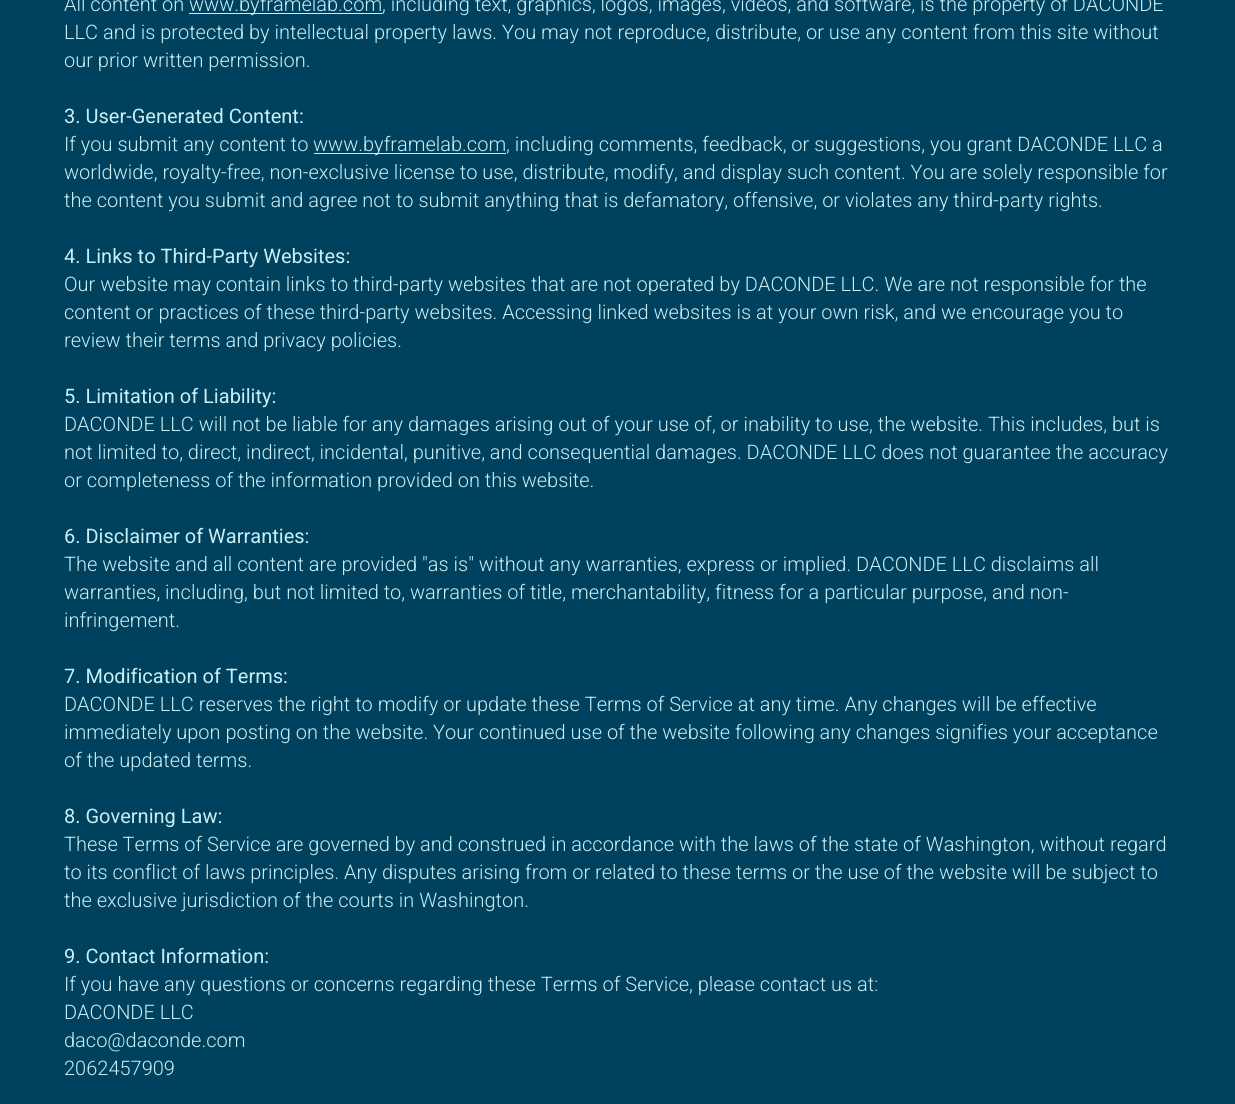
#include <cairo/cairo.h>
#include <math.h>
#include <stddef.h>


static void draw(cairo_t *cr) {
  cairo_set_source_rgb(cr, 0, 66 / 255.0, 94 / 255.0);
  cairo_paint(cr);
  cairo_set_source_rgb(cr, 200 / 255.0, 238 / 255.0, 245 / 255.0);
  cairo_rectangle(cr, 189, 13, 194, 1);
  cairo_fill(cr);
  cairo_rectangle(cr, 314, 153, 192, 1);
  cairo_fill(cr);
  cairo_select_font_face(cr, "Heebo Light", CAIRO_FONT_SLANT_NORMAL, CAIRO_FONT_WEIGHT_NORMAL);
  cairo_set_font_size(cr, 20);
  cairo_move_to(cr, 64, 11);
  cairo_show_text(cr, "All content on");
  cairo_move_to(cr, 189, 11);
  cairo_show_text(cr, "www.byframelab.com, including text, graphics, logos, images, videos, and software, is the property of DACONDE");
  cairo_move_to(cr, 64, 39);
  cairo_show_text(cr, "LLC and is protected by intellectual property laws. You may not reproduce, distribute, or use any content from this site without");
  cairo_move_to(cr, 64, 67);
  cairo_show_text(cr, "our prior written permission.");
  cairo_select_font_face(cr, "Heebo", CAIRO_FONT_SLANT_NORMAL, CAIRO_FONT_WEIGHT_NORMAL);
  cairo_move_to(cr, 64, 123);
  cairo_show_text(cr, "3. User-Generated Content:");
  cairo_select_font_face(cr, "Heebo Light", CAIRO_FONT_SLANT_NORMAL, CAIRO_FONT_WEIGHT_NORMAL);
  cairo_move_to(cr, 64, 151);
  cairo_show_text(cr, "If you submit any content to");
  cairo_move_to(cr, 313, 151);
  cairo_show_text(cr, "www.byframelab.com, including comments, feedback, or suggestions, you grant DACONDE LLC a");
  cairo_move_to(cr, 64, 179);
  cairo_show_text(cr, "worldwide, royalty-free, non-exclusive license to use, distribute, modify, and display such content. You are solely responsible for");
  cairo_move_to(cr, 64, 207);
  cairo_show_text(cr, "the content you submit and agree not to submit anything that is defamatory, offensive, or violates any third-party rights.");
  cairo_select_font_face(cr, "Heebo", CAIRO_FONT_SLANT_NORMAL, CAIRO_FONT_WEIGHT_NORMAL);
  cairo_move_to(cr, 64, 263);
  cairo_show_text(cr, "4. Links to Third-Party Websites:");
  cairo_select_font_face(cr, "Heebo Light", CAIRO_FONT_SLANT_NORMAL, CAIRO_FONT_WEIGHT_NORMAL);
  cairo_move_to(cr, 64, 291);
  cairo_show_text(cr, "Our website may contain links to third-party websites that are not operated by DACONDE LLC. We are not responsible for the");
  cairo_move_to(cr, 64, 319);
  cairo_show_text(cr, "content or practices of these third-party websites. Accessing linked websites is at your own risk, and we encourage you to");
  cairo_move_to(cr, 64, 347);
  cairo_show_text(cr, "review their terms and privacy policies.");
  cairo_select_font_face(cr, "Heebo", CAIRO_FONT_SLANT_NORMAL, CAIRO_FONT_WEIGHT_NORMAL);
  cairo_move_to(cr, 64, 403);
  cairo_show_text(cr, "5. Limitation of Liability:");
  cairo_select_font_face(cr, "Heebo Light", CAIRO_FONT_SLANT_NORMAL, CAIRO_FONT_WEIGHT_NORMAL);
  cairo_move_to(cr, 64, 431);
  cairo_show_text(cr, "DACONDE LLC will not be liable for any damages arising out of your use of, or inability to use, the website. This includes, but is");
  cairo_move_to(cr, 64, 459);
  cairo_show_text(cr, "not limited to, direct, indirect, incidental, punitive, and consequential damages. DACONDE LLC does not guarantee the accuracy");
  cairo_move_to(cr, 64, 487);
  cairo_show_text(cr, "or completeness of the information provided on this website.");
  cairo_select_font_face(cr, "Heebo", CAIRO_FONT_SLANT_NORMAL, CAIRO_FONT_WEIGHT_NORMAL);
  cairo_move_to(cr, 64, 543);
  cairo_show_text(cr, "6. Disclaimer of Warranties:");
  cairo_select_font_face(cr, "Heebo Light", CAIRO_FONT_SLANT_NORMAL, CAIRO_FONT_WEIGHT_NORMAL);
  cairo_move_to(cr, 64, 571);
  cairo_show_text(cr, "The website and all content are provided \"as is\" without any warranties, express or implied. DACONDE LLC disclaims all");
  cairo_move_to(cr, 64, 599);
  cairo_show_text(cr, "warranties, including, but not limited to, warranties of title, merchantability, fitness for a particular purpose, and non-");
  cairo_move_to(cr, 64, 627);
  cairo_show_text(cr, "infringement.");
  cairo_select_font_face(cr, "Heebo", CAIRO_FONT_SLANT_NORMAL, CAIRO_FONT_WEIGHT_NORMAL);
  cairo_move_to(cr, 64, 683);
  cairo_show_text(cr, "7. Modification of Terms:");
  cairo_select_font_face(cr, "Heebo Light", CAIRO_FONT_SLANT_NORMAL, CAIRO_FONT_WEIGHT_NORMAL);
  cairo_move_to(cr, 64, 711);
  cairo_show_text(cr, "DACONDE LLC reserves the right to modify or update these Terms of Service at any time. Any changes will be effective");
  cairo_move_to(cr, 64, 739);
  cairo_show_text(cr, "immediately upon posting on the website. Your continued use of the website following any changes signifies your acceptance");
  cairo_move_to(cr, 64, 767);
  cairo_show_text(cr, "of the updated terms.");
  cairo_select_font_face(cr, "Heebo", CAIRO_FONT_SLANT_NORMAL, CAIRO_FONT_WEIGHT_NORMAL);
  cairo_move_to(cr, 64, 823);
  cairo_show_text(cr, "8. Governing Law:");
  cairo_select_font_face(cr, "Heebo Light", CAIRO_FONT_SLANT_NORMAL, CAIRO_FONT_WEIGHT_NORMAL);
  cairo_move_to(cr, 64, 851);
  cairo_show_text(cr, "These Terms of Service are governed by and construed in accordance with the laws of the state of Washington, without regard");
  cairo_move_to(cr, 64, 879);
  cairo_show_text(cr, "to its conflict of laws principles. Any disputes arising from or related to these terms or the use of the website will be subject to");
  cairo_move_to(cr, 64, 907);
  cairo_show_text(cr, "the exclusive jurisdiction of the courts in Washington.");
  cairo_select_font_face(cr, "Heebo", CAIRO_FONT_SLANT_NORMAL, CAIRO_FONT_WEIGHT_NORMAL);
  cairo_move_to(cr, 64, 963);
  cairo_show_text(cr, "9. Contact Information:");
  cairo_select_font_face(cr, "Heebo Light", CAIRO_FONT_SLANT_NORMAL, CAIRO_FONT_WEIGHT_NORMAL);
  cairo_move_to(cr, 64, 991);
  cairo_show_text(cr, "If you have any questions or concerns regarding these Terms of Service, please contact us at:");
  cairo_move_to(cr, 64, 1019);
  cairo_show_text(cr, "DACONDE LLC");
  cairo_move_to(cr, 64, 1047);
  cairo_show_text(cr, "daco@daconde.com");
  cairo_move_to(cr, 64, 1075);
  cairo_show_text(cr, "2062457909");
}

int main(void) {
  cairo_surface_t *surface = cairo_image_surface_create(CAIRO_FORMAT_RGB24, 1235, 1104);
  cairo_t *cr = cairo_create(surface);
  cairo_font_options_t *options = cairo_font_options_create();
  cairo_font_options_set_hint_metrics(options, CAIRO_HINT_METRICS_OFF);
  cairo_font_options_set_hint_style(options, CAIRO_HINT_STYLE_NONE);
  cairo_set_font_options(cr, options);
  cairo_set_miter_limit(cr, 4);
  draw(cr);
  cairo_surface_write_to_png(surface, "out.png");
  cairo_font_options_destroy(options);
  cairo_destroy(cr);
  cairo_surface_destroy(surface);
  return 0;
}
